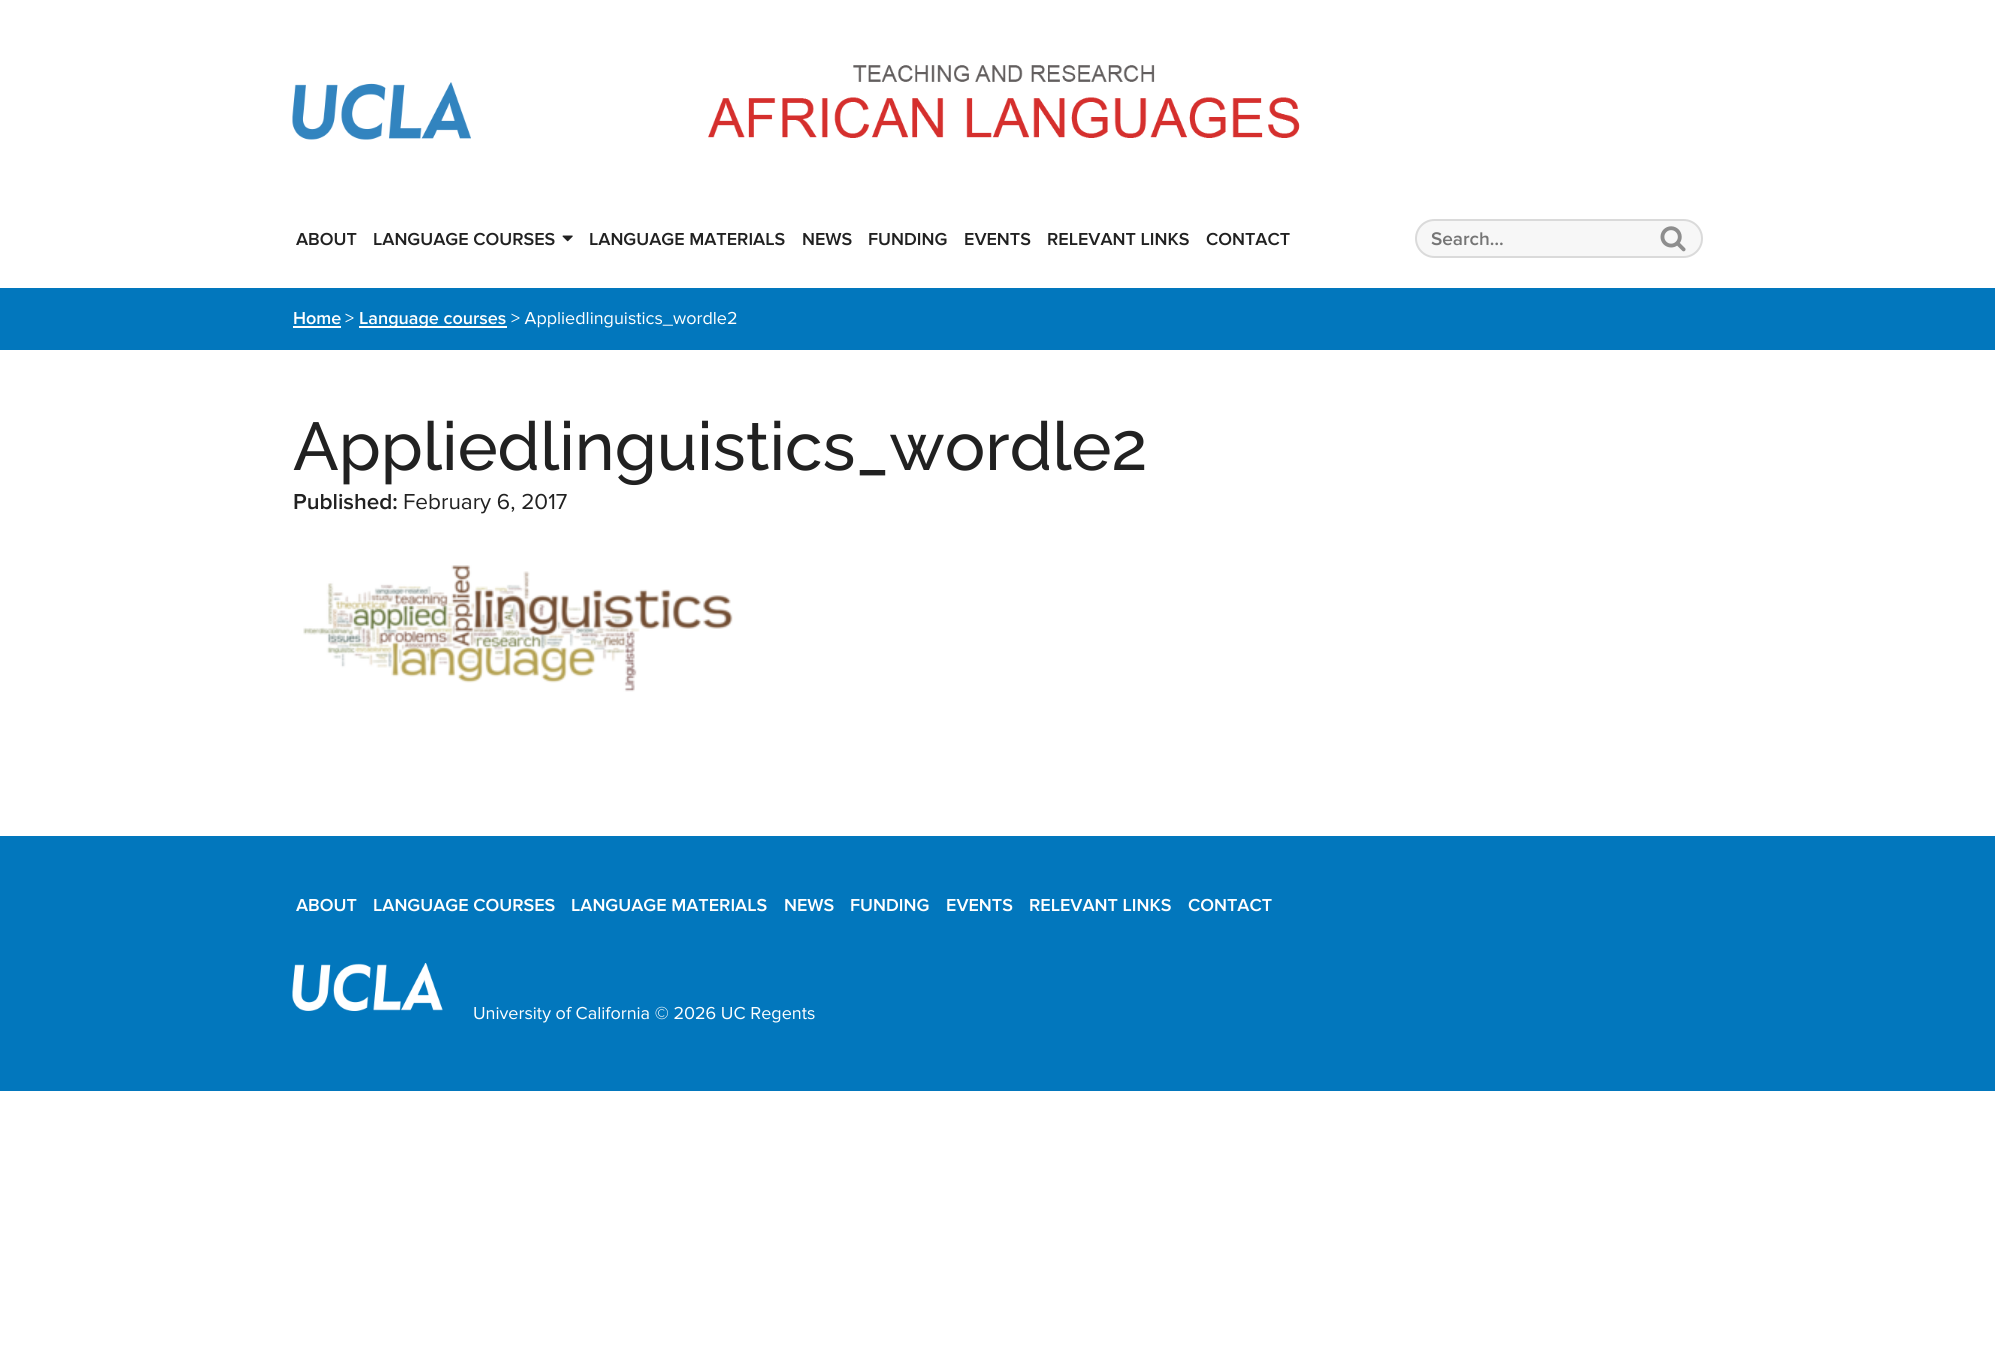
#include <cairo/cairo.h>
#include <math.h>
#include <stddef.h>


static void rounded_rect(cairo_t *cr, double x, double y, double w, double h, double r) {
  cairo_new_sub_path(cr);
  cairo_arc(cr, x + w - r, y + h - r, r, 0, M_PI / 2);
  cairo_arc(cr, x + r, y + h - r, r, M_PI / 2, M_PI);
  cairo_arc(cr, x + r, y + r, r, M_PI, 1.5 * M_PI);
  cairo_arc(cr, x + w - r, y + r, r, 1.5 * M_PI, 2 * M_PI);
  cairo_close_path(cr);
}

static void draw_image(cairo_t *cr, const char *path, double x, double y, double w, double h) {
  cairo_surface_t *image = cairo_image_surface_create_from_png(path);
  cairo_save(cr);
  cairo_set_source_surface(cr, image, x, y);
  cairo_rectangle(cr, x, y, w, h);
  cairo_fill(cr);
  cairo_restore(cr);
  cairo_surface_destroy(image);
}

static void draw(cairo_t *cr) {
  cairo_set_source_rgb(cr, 1, 1, 1);
  cairo_paint(cr);
  draw_image(cr, "images/1.png", 292, 82, 179, 58);
  draw_image(cr, "images/2.png", 708, 65, 592, 73);
  draw_image(cr, "images/3.png", 562, 235, 11, 7);
  cairo_set_source_rgb(cr, 247 / 255.0, 247 / 255.0, 247 / 255.0);
  rounded_rect(cr, 1415, 219, 288, 39, 19.5);
  cairo_fill(cr);
  rounded_rect(cr, 1416, 220, 286, 37, 18.5);
  cairo_set_source_rgba(cr, 0, 0, 0, 0.12);
  cairo_stroke(cr);
  draw_image(cr, "images/4.png", 1660, 226, 26, 26);
  cairo_set_source_rgb(cr, 2 / 255.0, 119 / 255.0, 189 / 255.0);
  cairo_rectangle(cr, 0, 288, 1995, 62);
  cairo_fill(cr);
  cairo_set_source_rgb(cr, 1, 1, 1);
  cairo_rectangle(cr, 293, 326, 48, 2);
  cairo_fill(cr);
  cairo_rectangle(cr, 359, 326, 148, 2);
  cairo_fill(cr);
  draw_image(cr, "images/5.png", 303, 565, 430, 127);
  cairo_set_source_rgb(cr, 2 / 255.0, 119 / 255.0, 189 / 255.0);
  cairo_rectangle(cr, 0, 836, 1995, 255);
  cairo_fill(cr);
  draw_image(cr, "images/6.png", 292, 963, 151, 48);
  cairo_select_font_face(cr, "Proxima Nova SemiBold", CAIRO_FONT_SLANT_NORMAL, CAIRO_FONT_WEIGHT_NORMAL);
  cairo_set_font_size(cr, 18);
  cairo_set_source_rgb(cr, 33 / 255.0, 33 / 255.0, 33 / 255.0);
  cairo_move_to(cr, 296, 245);
  cairo_show_text(cr, "ABOUT");
  cairo_move_to(cr, 373, 245);
  cairo_show_text(cr, "LANGUAGE COURSES");
  cairo_move_to(cr, 589, 245);
  cairo_show_text(cr, "LANGUAGE MATERIALS");
  cairo_move_to(cr, 802, 245);
  cairo_show_text(cr, "NEWS");
  cairo_move_to(cr, 868, 245);
  cairo_show_text(cr, "FUNDING");
  cairo_move_to(cr, 964, 245);
  cairo_show_text(cr, "EVENTS");
  cairo_move_to(cr, 1047, 245);
  cairo_show_text(cr, "RELEVANT LINKS");
  cairo_move_to(cr, 1206, 245);
  cairo_show_text(cr, "CONTACT");
  cairo_set_font_size(cr, 19);
  cairo_set_source_rgb(cr, 117 / 255.0, 117 / 255.0, 117 / 255.0);
  cairo_move_to(cr, 1431, 245);
  cairo_show_text(cr, "Search…");
  cairo_set_font_size(cr, 18);
  cairo_set_source_rgb(cr, 1, 1, 1);
  cairo_move_to(cr, 293, 324);
  cairo_show_text(cr, "Home");
  cairo_select_font_face(cr, "Proxima Nova", CAIRO_FONT_SLANT_NORMAL, CAIRO_FONT_WEIGHT_NORMAL);
  cairo_move_to(cr, 345, 324);
  cairo_show_text(cr, ">");
  cairo_select_font_face(cr, "Proxima Nova SemiBold", CAIRO_FONT_SLANT_NORMAL, CAIRO_FONT_WEIGHT_NORMAL);
  cairo_move_to(cr, 359, 324);
  cairo_show_text(cr, "Language courses");
  cairo_select_font_face(cr, "Proxima Nova", CAIRO_FONT_SLANT_NORMAL, CAIRO_FONT_WEIGHT_NORMAL);
  cairo_move_to(cr, 511, 324);
  cairo_show_text(cr, "> Appliedlinguistics_wordle2");
  cairo_select_font_face(cr, "Raleway Medium", CAIRO_FONT_SLANT_NORMAL, CAIRO_FONT_WEIGHT_NORMAL);
  cairo_set_font_size(cr, 67.5);
  cairo_set_source_rgb(cr, 33 / 255.0, 33 / 255.0, 33 / 255.0);
  cairo_move_to(cr, 293, 470);
  cairo_show_text(cr, "Appliedlinguistics_wordle2");
  cairo_select_font_face(cr, "Proxima Nova SemiBold", CAIRO_FONT_SLANT_NORMAL, CAIRO_FONT_WEIGHT_NORMAL);
  cairo_set_font_size(cr, 22.5);
  cairo_move_to(cr, 293, 509);
  cairo_show_text(cr, "Published:");
  cairo_select_font_face(cr, "Proxima Nova", CAIRO_FONT_SLANT_NORMAL, CAIRO_FONT_WEIGHT_NORMAL);
  cairo_move_to(cr, 403, 509);
  cairo_show_text(cr, "February 6, 2017");
  cairo_select_font_face(cr, "Proxima Nova SemiBold", CAIRO_FONT_SLANT_NORMAL, CAIRO_FONT_WEIGHT_NORMAL);
  cairo_set_font_size(cr, 18);
  cairo_set_source_rgb(cr, 1, 1, 1);
  cairo_move_to(cr, 296, 911);
  cairo_show_text(cr, "ABOUT");
  cairo_move_to(cr, 373, 911);
  cairo_show_text(cr, "LANGUAGE COURSES");
  cairo_move_to(cr, 571, 911);
  cairo_show_text(cr, "LANGUAGE MATERIALS");
  cairo_move_to(cr, 784, 911);
  cairo_show_text(cr, "NEWS");
  cairo_move_to(cr, 850, 911);
  cairo_show_text(cr, "FUNDING");
  cairo_move_to(cr, 946, 911);
  cairo_show_text(cr, "EVENTS");
  cairo_move_to(cr, 1029, 911);
  cairo_show_text(cr, "RELEVANT LINKS");
  cairo_move_to(cr, 1188, 911);
  cairo_show_text(cr, "CONTACT");
  cairo_select_font_face(cr, "Proxima Nova", CAIRO_FONT_SLANT_NORMAL, CAIRO_FONT_WEIGHT_NORMAL);
  cairo_move_to(cr, 473, 1019);
  cairo_show_text(cr, "University of California © 2026 UC Regents");
}

int main(void) {
  cairo_surface_t *surface = cairo_image_surface_create(CAIRO_FORMAT_RGB24, 1995, 1358);
  cairo_t *cr = cairo_create(surface);
  cairo_font_options_t *options = cairo_font_options_create();
  cairo_font_options_set_hint_metrics(options, CAIRO_HINT_METRICS_OFF);
  cairo_font_options_set_hint_style(options, CAIRO_HINT_STYLE_NONE);
  cairo_set_font_options(cr, options);
  cairo_set_miter_limit(cr, 4);
  draw(cr);
  cairo_surface_write_to_png(surface, "out.png");
  cairo_font_options_destroy(options);
  cairo_destroy(cr);
  cairo_surface_destroy(surface);
  return 0;
}
